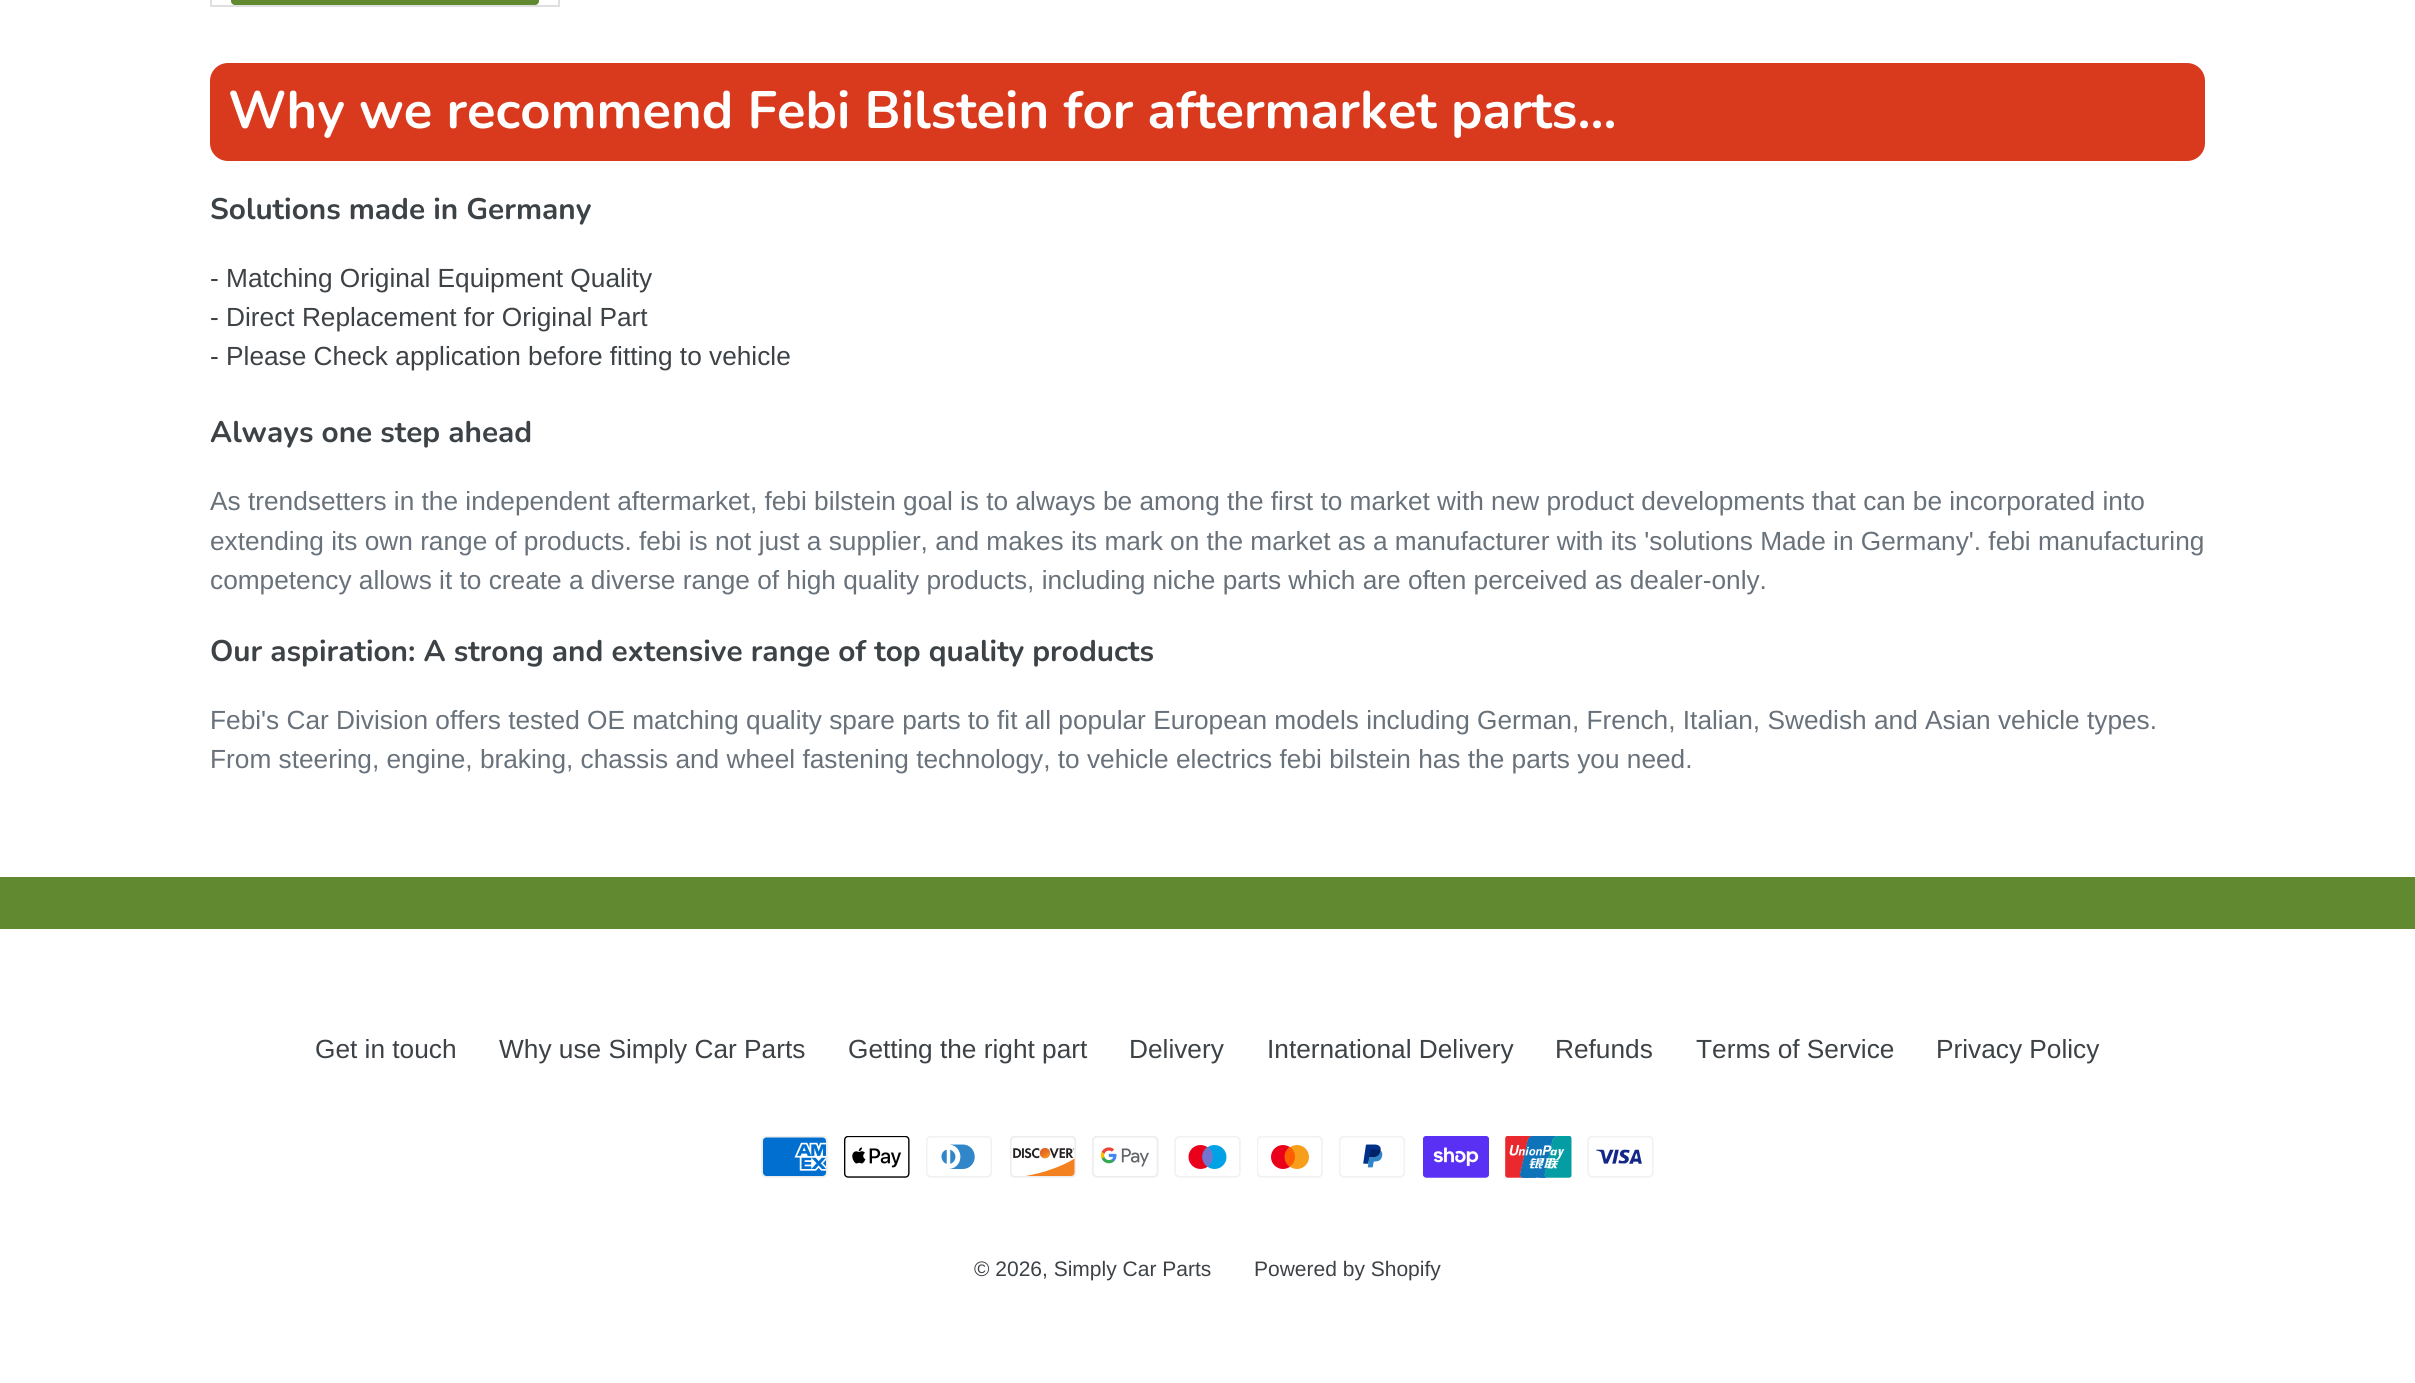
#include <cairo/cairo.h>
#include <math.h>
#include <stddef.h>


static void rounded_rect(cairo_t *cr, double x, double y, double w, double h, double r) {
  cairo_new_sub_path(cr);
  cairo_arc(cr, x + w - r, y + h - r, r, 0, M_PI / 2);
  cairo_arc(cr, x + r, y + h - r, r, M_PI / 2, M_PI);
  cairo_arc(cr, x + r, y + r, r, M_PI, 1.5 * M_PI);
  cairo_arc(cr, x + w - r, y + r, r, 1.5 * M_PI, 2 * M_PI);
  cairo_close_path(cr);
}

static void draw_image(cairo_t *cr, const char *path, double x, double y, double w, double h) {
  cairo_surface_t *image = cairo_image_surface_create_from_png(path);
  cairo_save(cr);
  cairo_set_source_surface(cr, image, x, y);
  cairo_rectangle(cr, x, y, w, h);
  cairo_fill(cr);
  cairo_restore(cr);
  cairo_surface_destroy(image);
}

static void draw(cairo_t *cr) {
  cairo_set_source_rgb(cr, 1, 1, 1);
  cairo_paint(cr);
  cairo_rectangle(cr, 211, -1, 348, 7);
  cairo_set_source_rgb(cr, 223 / 255.0, 223 / 255.0, 223 / 255.0);
  cairo_stroke(cr);
  cairo_set_source_rgb(cr, 97 / 255.0, 137 / 255.0, 47 / 255.0);
  rounded_rect(cr, 231, -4, 308, 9, 4);
  cairo_fill(cr);
  cairo_set_source_rgb(cr, 217 / 255.0, 58 / 255.0, 30 / 255.0);
  rounded_rect(cr, 210, 63, 1995, 98, 18);
  cairo_fill(cr);
  cairo_set_source_rgb(cr, 97 / 255.0, 137 / 255.0, 48 / 255.0);
  cairo_rectangle(cr, 0, 877, 2415, 52);
  cairo_fill(cr);
  draw_image(cr, "images/1.png", 761, 1136, 67, 42);
  draw_image(cr, "images/2.png", 844, 1136, 66, 42);
  draw_image(cr, "images/3.png", 926, 1136, 66, 42);
  draw_image(cr, "images/4.png", 1010, 1136, 66, 42);
  draw_image(cr, "images/5.png", 1092, 1136, 67, 42);
  draw_image(cr, "images/6.png", 1174, 1136, 67, 42);
  draw_image(cr, "images/7.png", 1257, 1136, 66, 42);
  draw_image(cr, "images/8.png", 1339, 1136, 66, 42);
  draw_image(cr, "images/9.png", 1423, 1136, 66, 42);
  draw_image(cr, "images/10.png", 1505, 1136, 67, 42);
  draw_image(cr, "images/11.png", 1587, 1136, 67, 42);
  cairo_select_font_face(cr, "Nunito", CAIRO_FONT_SLANT_NORMAL, CAIRO_FONT_WEIGHT_BOLD);
  cairo_set_font_size(cr, 52.5);
  cairo_set_source_rgb(cr, 1, 1, 1);
  cairo_move_to(cr, 228, 128);
  cairo_show_text(cr, "Why we recommend Febi Bilstein for aftermarket parts...");
  cairo_set_font_size(cr, 29.75);
  cairo_set_source_rgb(cr, 61 / 255.0, 66 / 255.0, 70 / 255.0);
  cairo_move_to(cr, 210, 219);
  cairo_show_text(cr, "Solutions made in Germany");
  cairo_select_font_face(cr, "Liberation Sans", CAIRO_FONT_SLANT_NORMAL, CAIRO_FONT_WEIGHT_NORMAL);
  cairo_set_font_size(cr, 26.25);
  cairo_move_to(cr, 210, 287);
  cairo_show_text(cr, "- Matching Original Equipment Quality");
  cairo_move_to(cr, 210, 326);
  cairo_show_text(cr, "- Direct Replacement for Original Part");
  cairo_move_to(cr, 210, 365);
  cairo_show_text(cr, "- Please Check application before fitting to vehicle");
  cairo_select_font_face(cr, "Nunito", CAIRO_FONT_SLANT_NORMAL, CAIRO_FONT_WEIGHT_BOLD);
  cairo_set_font_size(cr, 29.75);
  cairo_move_to(cr, 210, 442);
  cairo_show_text(cr, "Always one step ahead");
  cairo_select_font_face(cr, "Liberation Sans", CAIRO_FONT_SLANT_NORMAL, CAIRO_FONT_WEIGHT_NORMAL);
  cairo_set_font_size(cr, 26.25);
  cairo_set_source_rgb(cr, 105 / 255.0, 114 / 255.0, 123 / 255.0);
  cairo_move_to(cr, 210, 510);
  cairo_show_text(cr, "As trendsetters in the independent aftermarket, febi bilstein goal is to always be among the first to market with new product developments that can be incorporated into");
  cairo_move_to(cr, 210, 550);
  cairo_show_text(cr, "extending its own range of products. febi is not just a supplier, and makes its mark on the market as a manufacturer with its 'solutions Made in Germany'. febi manufacturing");
  cairo_move_to(cr, 210, 589);
  cairo_show_text(cr, "competency allows it to create a diverse range of high quality products, including niche parts which are often perceived as dealer-only.");
  cairo_select_font_face(cr, "Nunito", CAIRO_FONT_SLANT_NORMAL, CAIRO_FONT_WEIGHT_BOLD);
  cairo_set_font_size(cr, 29.75);
  cairo_set_source_rgb(cr, 61 / 255.0, 66 / 255.0, 70 / 255.0);
  cairo_move_to(cr, 210, 661);
  cairo_show_text(cr, "Our aspiration: A strong and extensive range of top quality products");
  cairo_select_font_face(cr, "Liberation Sans", CAIRO_FONT_SLANT_NORMAL, CAIRO_FONT_WEIGHT_NORMAL);
  cairo_set_font_size(cr, 26.25);
  cairo_set_source_rgb(cr, 105 / 255.0, 114 / 255.0, 123 / 255.0);
  cairo_move_to(cr, 210, 729);
  cairo_show_text(cr, "Febi's Car Division offers tested OE matching quality spare parts to fit all popular European models including German, French, Italian, Swedish and Asian vehicle types.");
  cairo_move_to(cr, 210, 768);
  cairo_show_text(cr, "From steering, engine, braking, chassis and wheel fastening technology, to vehicle electrics febi bilstein has the parts you need.");
  cairo_set_source_rgb(cr, 61 / 255.0, 66 / 255.0, 70 / 255.0);
  cairo_move_to(cr, 315, 1058);
  cairo_show_text(cr, "Get in touch");
  cairo_move_to(cr, 499, 1058);
  cairo_show_text(cr, "Why use Simply Car Parts");
  cairo_move_to(cr, 848, 1058);
  cairo_show_text(cr, "Getting the right part");
  cairo_move_to(cr, 1129, 1058);
  cairo_show_text(cr, "Delivery");
  cairo_move_to(cr, 1267, 1058);
  cairo_show_text(cr, "International Delivery");
  cairo_move_to(cr, 1555, 1058);
  cairo_show_text(cr, "Refunds");
  cairo_move_to(cr, 1696, 1058);
  cairo_show_text(cr, "Terms of Service");
  cairo_move_to(cr, 1936, 1058);
  cairo_show_text(cr, "Privacy Policy");
  cairo_set_font_size(cr, 21);
  cairo_move_to(cr, 974, 1276);
  cairo_show_text(cr, "© 2026, Simply Car Parts");
  cairo_move_to(cr, 1254, 1276);
  cairo_show_text(cr, "Powered by Shopify");
}

int main(void) {
  cairo_surface_t *surface = cairo_image_surface_create(CAIRO_FORMAT_RGB24, 2415, 1383);
  cairo_t *cr = cairo_create(surface);
  cairo_font_options_t *options = cairo_font_options_create();
  cairo_font_options_set_hint_metrics(options, CAIRO_HINT_METRICS_OFF);
  cairo_font_options_set_hint_style(options, CAIRO_HINT_STYLE_NONE);
  cairo_set_font_options(cr, options);
  cairo_set_miter_limit(cr, 4);
  draw(cr);
  cairo_surface_write_to_png(surface, "out.png");
  cairo_font_options_destroy(options);
  cairo_destroy(cr);
  cairo_surface_destroy(surface);
  return 0;
}
